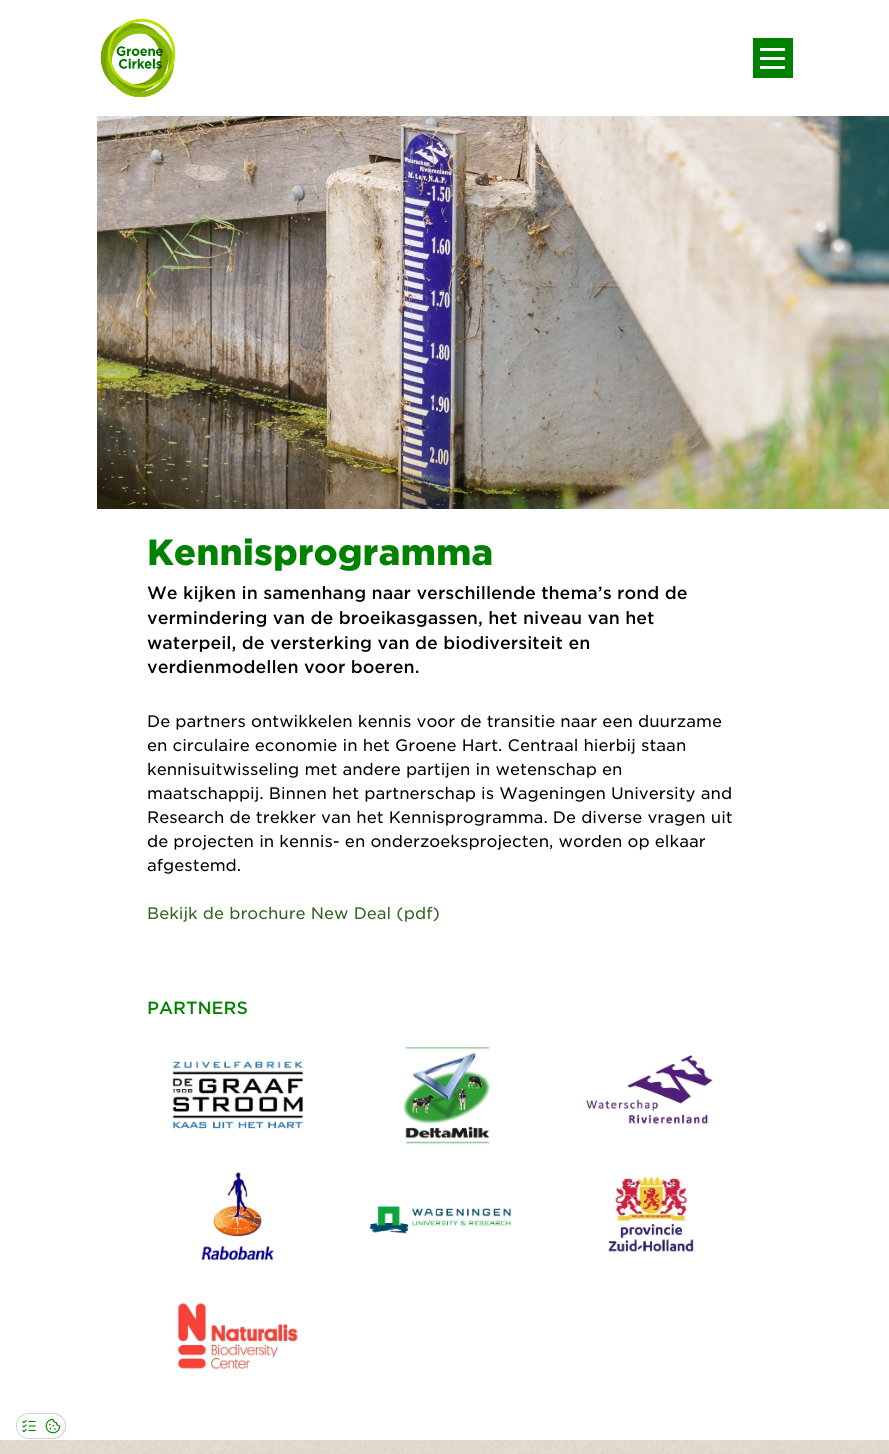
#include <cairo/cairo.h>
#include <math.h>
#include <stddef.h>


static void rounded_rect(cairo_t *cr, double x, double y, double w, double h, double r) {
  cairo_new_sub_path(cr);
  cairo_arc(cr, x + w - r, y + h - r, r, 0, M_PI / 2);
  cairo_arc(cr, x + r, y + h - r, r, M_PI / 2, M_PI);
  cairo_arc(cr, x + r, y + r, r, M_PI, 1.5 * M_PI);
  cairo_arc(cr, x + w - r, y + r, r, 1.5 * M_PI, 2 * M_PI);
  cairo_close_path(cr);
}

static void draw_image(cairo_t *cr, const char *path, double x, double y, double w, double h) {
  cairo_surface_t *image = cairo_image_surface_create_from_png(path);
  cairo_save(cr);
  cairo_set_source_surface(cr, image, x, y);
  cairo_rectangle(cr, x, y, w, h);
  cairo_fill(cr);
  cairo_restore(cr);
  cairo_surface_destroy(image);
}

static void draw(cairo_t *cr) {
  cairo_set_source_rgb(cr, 1, 1, 1);
  cairo_paint(cr);
  draw_image(cr, "images/1.png", 100, 19, 76, 79);
  cairo_set_source_rgb(cr, 0, 130 / 255.0, 0);
  cairo_rectangle(cr, 753, 38, 40, 40);
  cairo_fill(cr);
  cairo_set_source_rgb(cr, 1, 1, 1);
  cairo_rectangle(cr, 760, 57, 25, 3);
  cairo_fill(cr);
  cairo_rectangle(cr, 760, 48, 25, 3);
  cairo_fill(cr);
  cairo_rectangle(cr, 760, 66, 25, 3);
  cairo_fill(cr);
  draw_image(cr, "images/2.png", 97, 116, 792, 393);
  draw_image(cr, "images/3.png", 157, 1044, 162, 102);
  draw_image(cr, "images/4.png", 363, 1044, 163, 102);
  draw_image(cr, "images/5.png", 570, 1044, 162, 102);
  draw_image(cr, "images/6.png", 157, 1166, 162, 102);
  draw_image(cr, "images/7.png", 363, 1166, 163, 102);
  draw_image(cr, "images/8.png", 570, 1166, 162, 102);
  draw_image(cr, "images/9.png", 157, 1288, 162, 102);
  draw_image(cr, "images/10.png", 0, 1440, 889, 14);
  rounded_rect(cr, 16.5, 1413.5, 49, 25, 12.5);
  cairo_set_source_rgb(cr, 204 / 255.0, 204 / 255.0, 204 / 255.0);
  cairo_set_line_width(cr, 1);
  cairo_stroke(cr);
  cairo_set_source_rgb(cr, 1, 1, 1);
  cairo_arc(cr, 29, 1426, 12, 0, 2 * M_PI);
  cairo_fill(cr);
  draw_image(cr, "images/11.png", 22, 1419, 14, 14);
  draw_image(cr, "images/12.png", 45, 1418, 16, 16);
  cairo_select_font_face(cr, "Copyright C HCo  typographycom", CAIRO_FONT_SLANT_NORMAL, CAIRO_FONT_WEIGHT_NORMAL);
  cairo_set_font_size(cr, 35);
  cairo_set_source_rgb(cr, 0, 130 / 255.0, 0);
  cairo_move_to(cr, 147, 565);
  cairo_show_text(cr, "Kennisprogramma");
  cairo_select_font_face(cr, "Copyright C HCo  typographycom Light", CAIRO_FONT_SLANT_NORMAL, CAIRO_FONT_WEIGHT_NORMAL);
  cairo_set_font_size(cr, 17);
  cairo_set_source_rgb(cr, 0, 0, 0);
  cairo_move_to(cr, 147, 599);
  cairo_show_text(cr, "We kijken in samenhang naar verschillende thema’s rond de");
  cairo_move_to(cr, 147, 624);
  cairo_show_text(cr, "vermindering van de broeikasgassen, het niveau van het");
  cairo_move_to(cr, 147, 649);
  cairo_show_text(cr, "waterpeil, de versterking van de biodiversiteit en");
  cairo_move_to(cr, 147, 673);
  cairo_show_text(cr, "verdienmodellen voor boeren.");
  cairo_select_font_face(cr, "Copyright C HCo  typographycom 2 Light", CAIRO_FONT_SLANT_NORMAL, CAIRO_FONT_WEIGHT_NORMAL);
  cairo_set_font_size(cr, 16);
  cairo_move_to(cr, 147, 727);
  cairo_show_text(cr, "De partners ontwikkelen kennis voor de transitie naar een duurzame");
  cairo_move_to(cr, 147, 751);
  cairo_show_text(cr, "en circulaire economie in het Groene Hart. Centraal hierbij staan");
  cairo_move_to(cr, 147, 775);
  cairo_show_text(cr, "kennisuitwisseling met andere partijen in wetenschap en");
  cairo_move_to(cr, 147, 799);
  cairo_show_text(cr, "maatschappij. Binnen het partnerschap is Wageningen University and");
  cairo_move_to(cr, 147, 823);
  cairo_show_text(cr, "Research de trekker van het Kennisprogramma. De diverse vragen uit");
  cairo_move_to(cr, 147, 847);
  cairo_show_text(cr, "de projecten in kennis- en onderzoeksprojecten, worden op elkaar");
  cairo_move_to(cr, 147, 871);
  cairo_show_text(cr, "afgestemd.");
  cairo_set_source_rgb(cr, 47 / 255.0, 99 / 255.0, 30 / 255.0);
  cairo_move_to(cr, 147, 919);
  cairo_show_text(cr, "Bekijk de brochure New Deal (pdf)");
  cairo_select_font_face(cr, "Copyright C HCo  typographycom Light", CAIRO_FONT_SLANT_NORMAL, CAIRO_FONT_WEIGHT_NORMAL);
  cairo_set_font_size(cr, 17);
  cairo_set_source_rgb(cr, 0, 130 / 255.0, 0);
  cairo_move_to(cr, 147, 1014);
  cairo_show_text(cr, "PARTNERS");
}

int main(void) {
  cairo_surface_t *surface = cairo_image_surface_create(CAIRO_FORMAT_RGB24, 889, 1454);
  cairo_t *cr = cairo_create(surface);
  cairo_font_options_t *options = cairo_font_options_create();
  cairo_font_options_set_hint_metrics(options, CAIRO_HINT_METRICS_OFF);
  cairo_font_options_set_hint_style(options, CAIRO_HINT_STYLE_NONE);
  cairo_set_font_options(cr, options);
  cairo_set_miter_limit(cr, 4);
  draw(cr);
  cairo_surface_write_to_png(surface, "out.png");
  cairo_font_options_destroy(options);
  cairo_destroy(cr);
  cairo_surface_destroy(surface);
  return 0;
}
